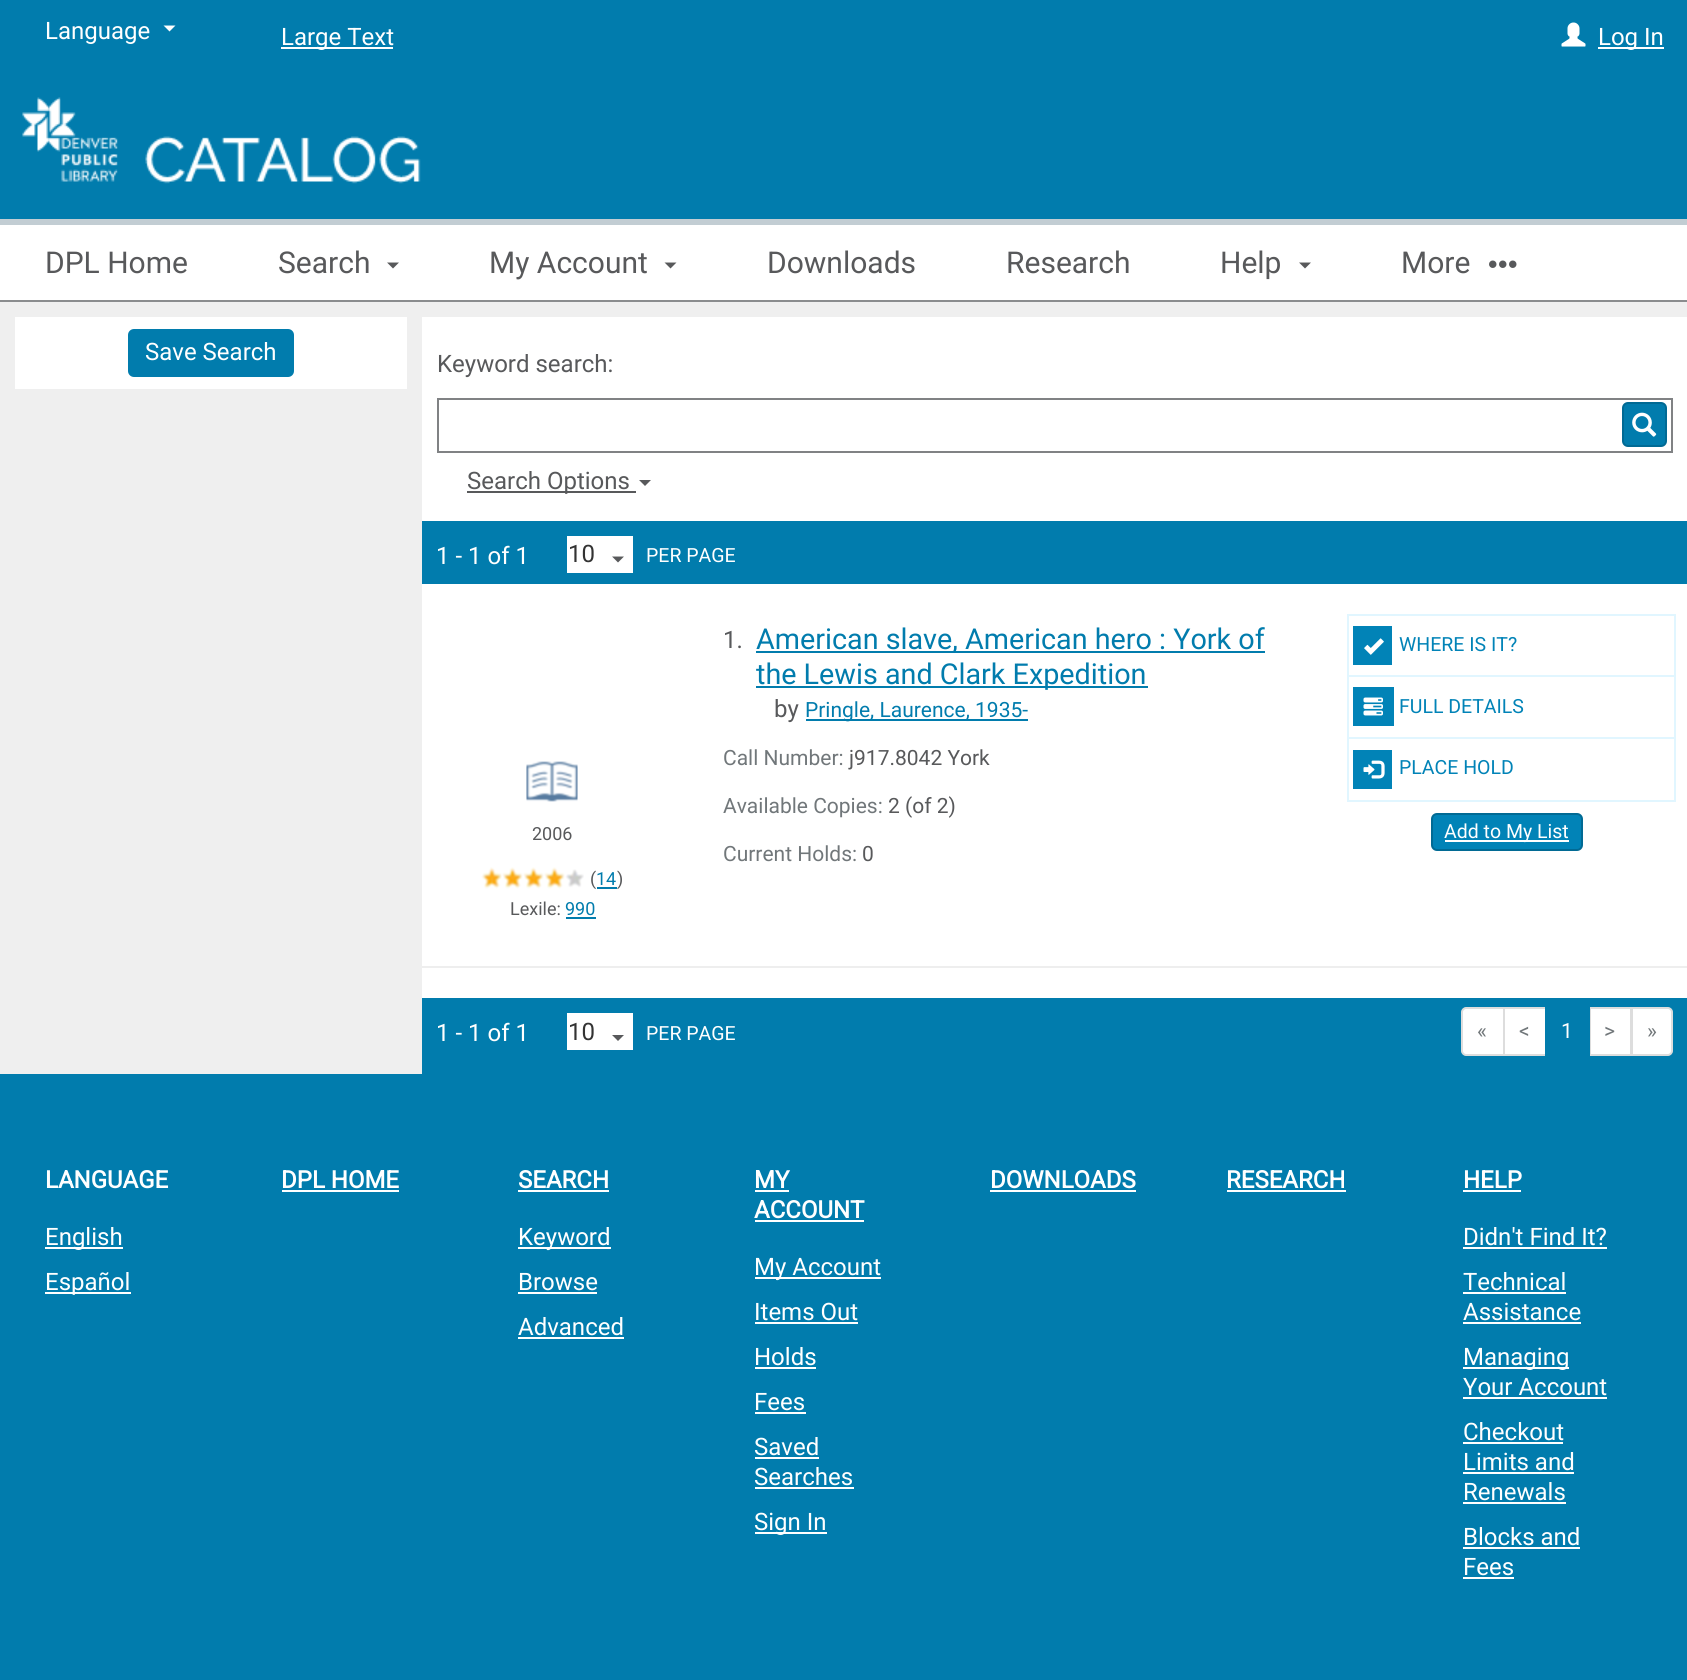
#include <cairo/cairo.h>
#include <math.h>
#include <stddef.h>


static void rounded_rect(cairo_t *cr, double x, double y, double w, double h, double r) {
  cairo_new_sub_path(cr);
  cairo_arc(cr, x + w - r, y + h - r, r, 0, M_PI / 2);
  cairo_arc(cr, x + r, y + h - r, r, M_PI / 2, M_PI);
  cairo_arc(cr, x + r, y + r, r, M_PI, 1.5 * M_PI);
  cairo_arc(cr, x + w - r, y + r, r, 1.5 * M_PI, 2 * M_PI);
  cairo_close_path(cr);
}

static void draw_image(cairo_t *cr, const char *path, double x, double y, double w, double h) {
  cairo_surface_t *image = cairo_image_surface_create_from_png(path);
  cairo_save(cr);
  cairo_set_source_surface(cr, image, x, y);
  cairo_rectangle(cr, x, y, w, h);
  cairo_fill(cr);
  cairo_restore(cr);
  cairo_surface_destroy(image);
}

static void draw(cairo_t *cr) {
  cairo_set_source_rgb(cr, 1 / 255.0, 124 / 255.0, 173 / 255.0);
  cairo_paint(cr);
  cairo_set_source_rgb(cr, 138 / 255.0, 140 / 255.0, 142 / 255.0);
  cairo_rectangle(cr, 0, 300, 1687, 2);
  cairo_fill(cr);
  cairo_set_source_rgb(cr, 1, 1, 1);
  cairo_new_path(cr);
  cairo_move_to(cr, 163.5, 25.5);
  cairo_line_to(cr, 175.5, 25.5);
  cairo_line_to(cr, 169.5, 31.5);
  cairo_close_path(cr);
  cairo_fill(cr);
  cairo_rectangle(cr, 281, 47, 112, 2);
  cairo_fill(cr);
  cairo_rectangle(cr, 0, 225, 1687, 75);
  cairo_fill(cr);
  cairo_set_source_rgb(cr, 194 / 255.0, 205 / 255.0, 211 / 255.0);
  cairo_rectangle(cr, 0, 219, 1687, 6);
  cairo_fill(cr);
  cairo_set_source_rgb(cr, 88 / 255.0, 89 / 255.0, 91 / 255.0);
  cairo_new_path(cr);
  cairo_move_to(cr, 387, 262.5);
  cairo_line_to(cr, 399, 262.5);
  cairo_line_to(cr, 393, 268.5);
  cairo_close_path(cr);
  cairo_fill(cr);
  cairo_new_path(cr);
  cairo_move_to(cr, 664.5, 262.5);
  cairo_line_to(cr, 676.5, 262.5);
  cairo_line_to(cr, 670.5, 268.5);
  cairo_close_path(cr);
  cairo_fill(cr);
  cairo_new_path(cr);
  cairo_move_to(cr, 1299, 262.5);
  cairo_line_to(cr, 1311, 262.5);
  cairo_line_to(cr, 1305, 268.5);
  cairo_close_path(cr);
  cairo_fill(cr);
  draw_image(cr, "images/1.png", 1489, 260, 28, 8);
  draw_image(cr, "images/2.png", 1561, 22, 25, 25);
  cairo_set_source_rgb(cr, 1, 1, 1);
  cairo_rectangle(cr, 1598, 47, 66, 2);
  cairo_fill(cr);
  draw_image(cr, "images/3.png", 22, 97, 399, 87);
  cairo_set_source_rgb(cr, 239 / 255.0, 239 / 255.0, 239 / 255.0);
  cairo_rectangle(cr, 0, 302, 422, 772);
  cairo_fill(cr);
  cairo_set_source_rgb(cr, 1, 1, 1);
  cairo_rectangle(cr, 15, 317, 392, 72);
  cairo_fill(cr);
  cairo_set_source_rgb(cr, 1 / 255.0, 124 / 255.0, 173 / 255.0);
  rounded_rect(cr, 128, 329, 166, 48, 6);
  cairo_fill(cr);
  cairo_set_source_rgb(cr, 1, 1, 1);
  cairo_rectangle(cr, 422, 317, 1265, 681);
  cairo_fill(cr);
  cairo_set_source_rgb(cr, 239 / 255.0, 239 / 255.0, 239 / 255.0);
  cairo_rectangle(cr, 422, 302, 1265, 15);
  cairo_fill(cr);
  cairo_rectangle(cr, 438, 399, 1234, 53);
  cairo_set_source_rgb(cr, 128 / 255.0, 130 / 255.0, 132 / 255.0);
  cairo_stroke(cr);
  cairo_set_source_rgb(cr, 1 / 255.0, 124 / 255.0, 173 / 255.0);
  rounded_rect(cr, 1623, 403, 43, 43, 5);
  cairo_fill_preserve(cr);
  cairo_set_source_rgb(cr, 1 / 255.0, 106 / 255.0, 148 / 255.0);
  cairo_stroke(cr);
  draw_image(cr, "images/4.png", 1632, 412, 25, 25);
  cairo_set_source_rgb(cr, 88 / 255.0, 89 / 255.0, 91 / 255.0);
  cairo_rectangle(cr, 467, 491, 169, 2);
  cairo_fill(cr);
  cairo_new_path(cr);
  cairo_move_to(cr, 639, 480);
  cairo_line_to(cr, 651, 480);
  cairo_line_to(cr, 645, 486);
  cairo_close_path(cr);
  cairo_fill(cr);
  cairo_set_source_rgb(cr, 1 / 255.0, 124 / 255.0, 173 / 255.0);
  cairo_rectangle(cr, 422, 521, 1265, 63);
  cairo_fill(cr);
  cairo_set_source_rgb(cr, 1, 1, 1);
  cairo_rectangle(cr, 567, 536, 66, 37);
  cairo_fill(cr);
  cairo_set_source_rgb(cr, 88 / 255.0, 89 / 255.0, 91 / 255.0);
  cairo_new_path(cr);
  cairo_move_to(cr, 612, 556.5);
  cairo_line_to(cr, 624, 556.5);
  cairo_line_to(cr, 618, 562.5);
  cairo_close_path(cr);
  cairo_fill(cr);
  cairo_set_source_rgb(cr, 1 / 255.0, 124 / 255.0, 173 / 255.0);
  cairo_rectangle(cr, 756, 651, 509, 2);
  cairo_fill(cr);
  cairo_rectangle(cr, 756, 686, 392, 2);
  cairo_fill(cr);
  cairo_rectangle(cr, 806, 719, 222, 2);
  cairo_fill(cr);
  draw_image(cr, "images/5.png", 526, 761, 52, 41);
  draw_image(cr, "images/6.png", 481, 867, 103, 22);
  cairo_rectangle(cr, 597, 887, 20, 2);
  cairo_fill(cr);
  cairo_rectangle(cr, 566, 917, 30, 2);
  cairo_fill(cr);
  cairo_set_source_rgb(cr, 225 / 255.0, 246 / 255.0, 1);
  cairo_rectangle(cr, 1347, 800, 329, 2);
  cairo_fill(cr);
  cairo_rectangle(cr, 1347, 614, 329, 2);
  cairo_fill(cr);
  cairo_rectangle(cr, 1674, 614, 2, 61);
  cairo_fill(cr);
  cairo_rectangle(cr, 1347, 614, 2, 61);
  cairo_fill(cr);
  cairo_set_source_rgb(cr, 1 / 255.0, 131 / 255.0, 183 / 255.0);
  cairo_rectangle(cr, 1353, 626, 39, 39);
  cairo_fill(cr);
  draw_image(cr, "images/7.png", 1364, 638, 20, 17);
  cairo_set_source_rgb(cr, 225 / 255.0, 246 / 255.0, 1);
  cairo_rectangle(cr, 1347, 675, 329, 2);
  cairo_fill(cr);
  cairo_rectangle(cr, 1674, 675, 2, 62);
  cairo_fill(cr);
  cairo_rectangle(cr, 1347, 675, 2, 62);
  cairo_fill(cr);
  cairo_set_source_rgb(cr, 1 / 255.0, 131 / 255.0, 183 / 255.0);
  cairo_rectangle(cr, 1353, 687, 41, 39);
  cairo_fill(cr);
  draw_image(cr, "images/8.png", 1363, 697, 20, 19);
  cairo_set_source_rgb(cr, 225 / 255.0, 246 / 255.0, 1);
  cairo_rectangle(cr, 1347, 737, 329, 2);
  cairo_fill(cr);
  cairo_rectangle(cr, 1674, 737, 2, 63);
  cairo_fill(cr);
  cairo_rectangle(cr, 1347, 737, 2, 63);
  cairo_fill(cr);
  cairo_set_source_rgb(cr, 1 / 255.0, 131 / 255.0, 183 / 255.0);
  cairo_rectangle(cr, 1353, 750, 39, 39);
  cairo_fill(cr);
  draw_image(cr, "images/9.png", 1363, 760, 22, 19);
  rounded_rect(cr, 1432, 814, 150, 36, 5);
  cairo_fill_preserve(cr);
  cairo_set_source_rgb(cr, 1 / 255.0, 106 / 255.0, 148 / 255.0);
  cairo_stroke(cr);
  cairo_set_source_rgb(cr, 1, 1, 1);
  cairo_rectangle(cr, 1445, 840, 124, 2);
  cairo_fill(cr);
  cairo_set_source_rgb(cr, 238 / 255.0, 238 / 255.0, 238 / 255.0);
  cairo_rectangle(cr, 422, 966, 1265, 2);
  cairo_fill(cr);
  cairo_set_source_rgb(cr, 1, 1, 1);
  cairo_rectangle(cr, 567, 1013, 66, 37);
  cairo_fill(cr);
  cairo_set_source_rgb(cr, 88 / 255.0, 89 / 255.0, 91 / 255.0);
  cairo_new_path(cr);
  cairo_move_to(cr, 612, 1035);
  cairo_line_to(cr, 624, 1035);
  cairo_line_to(cr, 618, 1041);
  cairo_close_path(cr);
  cairo_fill(cr);
  cairo_set_source_rgb(cr, 1, 1, 1);
  cairo_new_path(cr);
  cairo_move_to(cr, 1466, 1008);
  cairo_line_to(cr, 1504, 1008);
  cairo_line_to(cr, 1504, 1055);
  cairo_line_to(cr, 1466, 1055);
  cairo_curve_to(cr, 1464, 1055, 1462, 1053, 1462, 1051);
  cairo_line_to(cr, 1462, 1012);
  cairo_curve_to(cr, 1462, 1010, 1464, 1008, 1466, 1008);
  cairo_close_path(cr);
  cairo_fill_preserve(cr);
  cairo_set_source_rgb(cr, 221 / 255.0, 221 / 255.0, 221 / 255.0);
  cairo_stroke(cr);
  cairo_set_source_rgb(cr, 1, 1, 1);
  cairo_rectangle(cr, 1504, 1008, 42, 47);
  cairo_fill_preserve(cr);
  cairo_set_source_rgb(cr, 221 / 255.0, 221 / 255.0, 221 / 255.0);
  cairo_stroke(cr);
  cairo_set_source_rgb(cr, 1, 1, 1);
  cairo_rectangle(cr, 1590, 1008, 41, 47);
  cairo_fill_preserve(cr);
  cairo_set_source_rgb(cr, 221 / 255.0, 221 / 255.0, 221 / 255.0);
  cairo_stroke(cr);
  cairo_set_source_rgb(cr, 1 / 255.0, 124 / 255.0, 173 / 255.0);
  cairo_rectangle(cr, 1545, 1007, 45, 49);
  cairo_fill(cr);
  cairo_set_source_rgb(cr, 1, 1, 1);
  cairo_new_path(cr);
  cairo_move_to(cr, 1632, 1008);
  cairo_line_to(cr, 1668, 1008);
  cairo_curve_to(cr, 1670, 1008, 1672, 1010, 1672, 1012);
  cairo_line_to(cr, 1672, 1051);
  cairo_curve_to(cr, 1672, 1053, 1670, 1055, 1668, 1055);
  cairo_line_to(cr, 1632, 1055);
  cairo_close_path(cr);
  cairo_fill_preserve(cr);
  cairo_set_source_rgb(cr, 221 / 255.0, 221 / 255.0, 221 / 255.0);
  cairo_stroke(cr);
  cairo_set_source_rgb(cr, 1, 1, 1);
  cairo_rectangle(cr, 45, 1247, 78, 2);
  cairo_fill(cr);
  cairo_rectangle(cr, 45, 1292, 86, 2);
  cairo_fill(cr);
  cairo_rectangle(cr, 282, 1190, 117, 2);
  cairo_fill(cr);
  cairo_rectangle(cr, 518, 1190, 91, 2);
  cairo_fill(cr);
  cairo_rectangle(cr, 518, 1247, 93, 2);
  cairo_fill(cr);
  cairo_rectangle(cr, 518, 1292, 79, 2);
  cairo_fill(cr);
  cairo_rectangle(cr, 518, 1337, 106, 2);
  cairo_fill(cr);
  cairo_rectangle(cr, 755, 1190, 34, 2);
  cairo_fill(cr);
  cairo_rectangle(cr, 755, 1220, 109, 2);
  cairo_fill(cr);
  cairo_rectangle(cr, 755, 1277, 126, 2);
  cairo_fill(cr);
  cairo_rectangle(cr, 755, 1322, 103, 2);
  cairo_fill(cr);
  cairo_rectangle(cr, 755, 1367, 61, 2);
  cairo_fill(cr);
  cairo_rectangle(cr, 755, 1412, 51, 2);
  cairo_fill(cr);
  cairo_rectangle(cr, 755, 1457, 64, 2);
  cairo_fill(cr);
  cairo_rectangle(cr, 755, 1487, 99, 2);
  cairo_fill(cr);
  cairo_rectangle(cr, 755, 1532, 72, 2);
  cairo_fill(cr);
  cairo_rectangle(cr, 990, 1190, 146, 2);
  cairo_fill(cr);
  cairo_rectangle(cr, 1227, 1190, 119, 2);
  cairo_fill(cr);
  cairo_rectangle(cr, 1463, 1190, 58, 2);
  cairo_fill(cr);
  cairo_rectangle(cr, 1463, 1247, 144, 2);
  cairo_fill(cr);
  cairo_rectangle(cr, 1463, 1292, 103, 2);
  cairo_fill(cr);
  cairo_rectangle(cr, 1463, 1322, 118, 2);
  cairo_fill(cr);
  cairo_rectangle(cr, 1463, 1367, 106, 2);
  cairo_fill(cr);
  cairo_rectangle(cr, 1463, 1397, 144, 2);
  cairo_fill(cr);
  cairo_rectangle(cr, 1463, 1442, 100, 2);
  cairo_fill(cr);
  cairo_rectangle(cr, 1463, 1472, 111, 2);
  cairo_fill(cr);
  cairo_rectangle(cr, 1463, 1502, 103, 2);
  cairo_fill(cr);
  cairo_rectangle(cr, 1463, 1547, 117, 2);
  cairo_fill(cr);
  cairo_rectangle(cr, 1463, 1577, 51, 2);
  cairo_fill(cr);
  cairo_select_font_face(cr, "Roboto", CAIRO_FONT_SLANT_NORMAL, CAIRO_FONT_WEIGHT_NORMAL);
  cairo_set_font_size(cr, 24);
  cairo_move_to(cr, 45, 39);
  cairo_show_text(cr, "Language");
  cairo_move_to(cr, 281, 45);
  cairo_show_text(cr, "Large Text");
  cairo_set_font_size(cr, 30);
  cairo_set_source_rgb(cr, 88 / 255.0, 89 / 255.0, 91 / 255.0);
  cairo_move_to(cr, 45, 273);
  cairo_show_text(cr, "DPL Home");
  cairo_move_to(cr, 278, 273);
  cairo_show_text(cr, "Search");
  cairo_move_to(cr, 489, 273);
  cairo_show_text(cr, "My Account");
  cairo_move_to(cr, 767, 273);
  cairo_show_text(cr, "Downloads");
  cairo_move_to(cr, 1006, 273);
  cairo_show_text(cr, "Research");
  cairo_move_to(cr, 1220, 273);
  cairo_show_text(cr, "Help");
  cairo_move_to(cr, 1401, 273);
  cairo_show_text(cr, "More");
  cairo_set_font_size(cr, 24);
  cairo_set_source_rgb(cr, 1, 1, 1);
  cairo_move_to(cr, 1598, 45);
  cairo_show_text(cr, "Log In");
  cairo_move_to(cr, 145, 360);
  cairo_show_text(cr, "Save Search");
  cairo_set_source_rgb(cr, 88 / 255.0, 89 / 255.0, 91 / 255.0);
  cairo_move_to(cr, 437, 372);
  cairo_show_text(cr, "Keyword search:");
  cairo_move_to(cr, 467, 489);
  cairo_show_text(cr, "Search Options");
  cairo_set_source_rgb(cr, 1, 1, 1);
  cairo_move_to(cr, 436, 564);
  cairo_show_text(cr, "1 - 1 of 1");
  cairo_set_source_rgb(cr, 51 / 255.0, 51 / 255.0, 51 / 255.0);
  cairo_move_to(cr, 568, 562);
  cairo_show_text(cr, "10");
  cairo_set_font_size(cr, 19.5);
  cairo_set_source_rgb(cr, 1, 1, 1);
  cairo_move_to(cr, 646, 562);
  cairo_show_text(cr, "PER PAGE");
  cairo_set_font_size(cr, 24);
  cairo_set_source_rgb(cr, 88 / 255.0, 89 / 255.0, 91 / 255.0);
  cairo_move_to(cr, 723, 648);
  cairo_show_text(cr, "1.");
  cairo_set_font_size(cr, 28.75);
  cairo_set_source_rgb(cr, 1 / 255.0, 124 / 255.0, 173 / 255.0);
  cairo_move_to(cr, 756, 649);
  cairo_show_text(cr, "American slave, American hero : York of");
  cairo_move_to(cr, 756, 684);
  cairo_show_text(cr, "the Lewis and Clark Expedition");
  cairo_set_font_size(cr, 24);
  cairo_set_source_rgb(cr, 88 / 255.0, 89 / 255.0, 91 / 255.0);
  cairo_move_to(cr, 774, 717);
  cairo_show_text(cr, "by");
  cairo_set_font_size(cr, 21);
  cairo_set_source_rgb(cr, 1 / 255.0, 124 / 255.0, 173 / 255.0);
  cairo_move_to(cr, 805, 717);
  cairo_show_text(cr, "Pringle, Laurence, 1935-");
  cairo_set_source_rgb(cr, 113 / 255.0, 119 / 255.0, 122 / 255.0);
  cairo_move_to(cr, 723, 765);
  cairo_show_text(cr, "Call Number:");
  cairo_set_source_rgb(cr, 88 / 255.0, 89 / 255.0, 91 / 255.0);
  cairo_move_to(cr, 849, 765);
  cairo_show_text(cr, "j917.8042 York");
  cairo_set_source_rgb(cr, 113 / 255.0, 119 / 255.0, 122 / 255.0);
  cairo_move_to(cr, 723, 813);
  cairo_show_text(cr, "Available Copies:");
  cairo_set_source_rgb(cr, 88 / 255.0, 89 / 255.0, 91 / 255.0);
  cairo_move_to(cr, 888, 813);
  cairo_show_text(cr, "2 (of 2)");
  cairo_set_source_rgb(cr, 113 / 255.0, 119 / 255.0, 122 / 255.0);
  cairo_move_to(cr, 723, 861);
  cairo_show_text(cr, "Current Holds:");
  cairo_set_source_rgb(cr, 88 / 255.0, 89 / 255.0, 91 / 255.0);
  cairo_move_to(cr, 862, 861);
  cairo_show_text(cr, "0");
  cairo_set_font_size(cr, 18);
  cairo_move_to(cr, 532, 840);
  cairo_show_text(cr, "2006");
  cairo_move_to(cr, 590, 885);
  cairo_show_text(cr, "(");
  cairo_set_source_rgb(cr, 1 / 255.0, 124 / 255.0, 173 / 255.0);
  cairo_move_to(cr, 596, 885);
  cairo_show_text(cr, "14");
  cairo_set_source_rgb(cr, 88 / 255.0, 89 / 255.0, 91 / 255.0);
  cairo_move_to(cr, 617, 885);
  cairo_show_text(cr, ")");
  cairo_move_to(cr, 510, 915);
  cairo_show_text(cr, "Lexile:");
  cairo_set_source_rgb(cr, 1 / 255.0, 124 / 255.0, 173 / 255.0);
  cairo_move_to(cr, 565, 915);
  cairo_show_text(cr, "990");
  cairo_set_font_size(cr, 19.5);
  cairo_set_source_rgb(cr, 1 / 255.0, 131 / 255.0, 183 / 255.0);
  cairo_move_to(cr, 1399, 651);
  cairo_show_text(cr, "WHERE IS IT?");
  cairo_move_to(cr, 1399, 713);
  cairo_show_text(cr, "FULL DETAILS");
  cairo_move_to(cr, 1399, 774);
  cairo_show_text(cr, "PLACE HOLD");
  cairo_set_source_rgb(cr, 1, 1, 1);
  cairo_move_to(cr, 1444, 838);
  cairo_show_text(cr, "Add to My List");
  cairo_set_font_size(cr, 24);
  cairo_move_to(cr, 436, 1041);
  cairo_show_text(cr, "1 - 1 of 1");
  cairo_set_source_rgb(cr, 51 / 255.0, 51 / 255.0, 51 / 255.0);
  cairo_move_to(cr, 568, 1040);
  cairo_show_text(cr, "10");
  cairo_set_font_size(cr, 19.5);
  cairo_set_source_rgb(cr, 1, 1, 1);
  cairo_move_to(cr, 646, 1040);
  cairo_show_text(cr, "PER PAGE");
  cairo_set_font_size(cr, 21);
  cairo_set_source_rgb(cr, 113 / 255.0, 119 / 255.0, 122 / 255.0);
  cairo_move_to(cr, 1477, 1038);
  cairo_show_text(cr, "«");
  cairo_move_to(cr, 1519, 1038);
  cairo_show_text(cr, "<");
  cairo_set_source_rgb(cr, 1, 1, 1);
  cairo_move_to(cr, 1561, 1038);
  cairo_show_text(cr, "1");
  cairo_set_source_rgb(cr, 113 / 255.0, 119 / 255.0, 122 / 255.0);
  cairo_move_to(cr, 1604, 1038);
  cairo_show_text(cr, ">");
  cairo_move_to(cr, 1647, 1038);
  cairo_show_text(cr, "»");
  cairo_select_font_face(cr, "Roboto", CAIRO_FONT_SLANT_NORMAL, CAIRO_FONT_WEIGHT_BOLD);
  cairo_set_font_size(cr, 24);
  cairo_set_source_rgb(cr, 1, 1, 1);
  cairo_move_to(cr, 45, 1188);
  cairo_show_text(cr, "LANGUAGE");
  cairo_select_font_face(cr, "Roboto", CAIRO_FONT_SLANT_NORMAL, CAIRO_FONT_WEIGHT_NORMAL);
  cairo_move_to(cr, 45, 1245);
  cairo_show_text(cr, "English");
  cairo_move_to(cr, 45, 1290);
  cairo_show_text(cr, "Español");
  cairo_select_font_face(cr, "Roboto", CAIRO_FONT_SLANT_NORMAL, CAIRO_FONT_WEIGHT_BOLD);
  cairo_move_to(cr, 281, 1188);
  cairo_show_text(cr, "DPL HOME");
  cairo_move_to(cr, 518, 1188);
  cairo_show_text(cr, "SEARCH");
  cairo_select_font_face(cr, "Roboto", CAIRO_FONT_SLANT_NORMAL, CAIRO_FONT_WEIGHT_NORMAL);
  cairo_move_to(cr, 518, 1245);
  cairo_show_text(cr, "Keyword");
  cairo_move_to(cr, 518, 1290);
  cairo_show_text(cr, "Browse");
  cairo_move_to(cr, 518, 1335);
  cairo_show_text(cr, "Advanced");
  cairo_select_font_face(cr, "Roboto", CAIRO_FONT_SLANT_NORMAL, CAIRO_FONT_WEIGHT_BOLD);
  cairo_move_to(cr, 754, 1188);
  cairo_show_text(cr, "MY");
  cairo_move_to(cr, 754, 1218);
  cairo_show_text(cr, "ACCOUNT");
  cairo_select_font_face(cr, "Roboto", CAIRO_FONT_SLANT_NORMAL, CAIRO_FONT_WEIGHT_NORMAL);
  cairo_move_to(cr, 754, 1275);
  cairo_show_text(cr, "My Account");
  cairo_move_to(cr, 754, 1320);
  cairo_show_text(cr, "Items Out");
  cairo_move_to(cr, 754, 1365);
  cairo_show_text(cr, "Holds");
  cairo_move_to(cr, 754, 1410);
  cairo_show_text(cr, "Fees");
  cairo_move_to(cr, 754, 1455);
  cairo_show_text(cr, "Saved");
  cairo_move_to(cr, 754, 1485);
  cairo_show_text(cr, "Searches");
  cairo_move_to(cr, 754, 1530);
  cairo_show_text(cr, "Sign In");
  cairo_select_font_face(cr, "Roboto", CAIRO_FONT_SLANT_NORMAL, CAIRO_FONT_WEIGHT_BOLD);
  cairo_move_to(cr, 990, 1188);
  cairo_show_text(cr, "DOWNLOADS");
  cairo_move_to(cr, 1226, 1188);
  cairo_show_text(cr, "RESEARCH");
  cairo_move_to(cr, 1463, 1188);
  cairo_show_text(cr, "HELP");
  cairo_select_font_face(cr, "Roboto", CAIRO_FONT_SLANT_NORMAL, CAIRO_FONT_WEIGHT_NORMAL);
  cairo_move_to(cr, 1463, 1245);
  cairo_show_text(cr, "Didn't Find It?");
  cairo_move_to(cr, 1463, 1290);
  cairo_show_text(cr, "Technical");
  cairo_move_to(cr, 1463, 1320);
  cairo_show_text(cr, "Assistance");
  cairo_move_to(cr, 1463, 1365);
  cairo_show_text(cr, "Managing");
  cairo_move_to(cr, 1463, 1395);
  cairo_show_text(cr, "Your Account");
  cairo_move_to(cr, 1463, 1440);
  cairo_show_text(cr, "Checkout");
  cairo_move_to(cr, 1463, 1470);
  cairo_show_text(cr, "Limits and");
  cairo_move_to(cr, 1463, 1500);
  cairo_show_text(cr, "Renewals");
  cairo_move_to(cr, 1463, 1545);
  cairo_show_text(cr, "Blocks and");
  cairo_move_to(cr, 1463, 1575);
  cairo_show_text(cr, "Fees");
}

int main(void) {
  cairo_surface_t *surface = cairo_image_surface_create(CAIRO_FORMAT_RGB24, 1687, 1680);
  cairo_t *cr = cairo_create(surface);
  cairo_font_options_t *options = cairo_font_options_create();
  cairo_font_options_set_hint_metrics(options, CAIRO_HINT_METRICS_OFF);
  cairo_font_options_set_hint_style(options, CAIRO_HINT_STYLE_NONE);
  cairo_set_font_options(cr, options);
  cairo_set_miter_limit(cr, 4);
  draw(cr);
  cairo_surface_write_to_png(surface, "out.png");
  cairo_font_options_destroy(options);
  cairo_destroy(cr);
  cairo_surface_destroy(surface);
  return 0;
}
